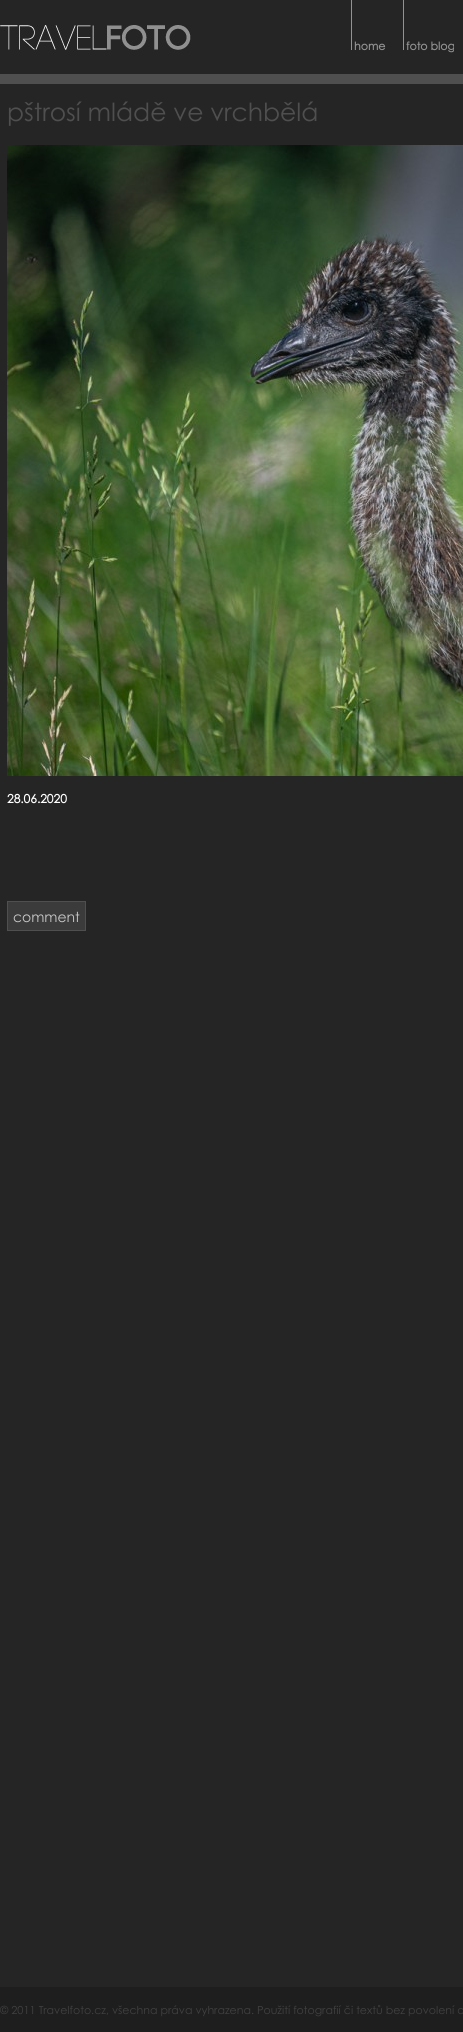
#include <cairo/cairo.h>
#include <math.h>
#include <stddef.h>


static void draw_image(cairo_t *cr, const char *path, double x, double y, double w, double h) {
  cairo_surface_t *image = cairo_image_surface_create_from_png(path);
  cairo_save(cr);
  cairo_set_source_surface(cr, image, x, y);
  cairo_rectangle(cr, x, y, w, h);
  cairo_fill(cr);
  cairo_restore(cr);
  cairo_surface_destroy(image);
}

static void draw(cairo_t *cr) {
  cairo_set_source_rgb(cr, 37 / 255.0, 37 / 255.0, 37 / 255.0);
  cairo_paint(cr);
  draw_image(cr, "images/1.png", 0, 25, 463, 59);
  cairo_set_source_rgb(cr, 146 / 255.0, 146 / 255.0, 146 / 255.0);
  cairo_rectangle(cr, 351, 0, 1, 50);
  cairo_fill(cr);
  cairo_rectangle(cr, 403, 0, 1, 50);
  cairo_fill(cr);
  draw_image(cr, "images/2.png", 7, 145, 456, 631);
  cairo_set_source_rgb(cr, 59 / 255.0, 59 / 255.0, 59 / 255.0);
  cairo_rectangle(cr, 7.5, 901.5, 78, 29);
  cairo_fill_preserve(cr);
  cairo_set_source_rgb(cr, 79 / 255.0, 79 / 255.0, 79 / 255.0);
  cairo_set_line_width(cr, 1);
  cairo_stroke(cr);
  cairo_set_source_rgb(cr, 30 / 255.0, 30 / 255.0, 30 / 255.0);
  cairo_rectangle(cr, 0, 1987, 463, 45);
  cairo_fill(cr);
  cairo_select_font_face(cr, "Century Gothic", CAIRO_FONT_SLANT_NORMAL, CAIRO_FONT_WEIGHT_BOLD);
  cairo_set_font_size(cr, 11);
  cairo_set_source_rgb(cr, 146 / 255.0, 146 / 255.0, 146 / 255.0);
  cairo_move_to(cr, 354, 50);
  cairo_show_text(cr, "home");
  cairo_move_to(cr, 406, 50);
  cairo_show_text(cr, "foto blog");
  cairo_select_font_face(cr, "Century Gothic", CAIRO_FONT_SLANT_NORMAL, CAIRO_FONT_WEIGHT_NORMAL);
  cairo_set_font_size(cr, 25);
  cairo_set_source_rgb(cr, 79 / 255.0, 79 / 255.0, 79 / 255.0);
  cairo_move_to(cr, 7, 121);
  cairo_show_text(cr, "pštrosí mládě ve vrchbělá");
  cairo_select_font_face(cr, "Century Gothic", CAIRO_FONT_SLANT_NORMAL, CAIRO_FONT_WEIGHT_BOLD);
  cairo_set_font_size(cr, 12);
  cairo_set_source_rgb(cr, 1, 1, 1);
  cairo_move_to(cr, 7, 803);
  cairo_show_text(cr, "28.06.2020");
  cairo_select_font_face(cr, "Century Gothic", CAIRO_FONT_SLANT_NORMAL, CAIRO_FONT_WEIGHT_NORMAL);
  cairo_set_font_size(cr, 14);
  cairo_set_source_rgb(cr, 201 / 255.0, 201 / 255.0, 201 / 255.0);
  cairo_move_to(cr, 13, 922);
  cairo_show_text(cr, "comment");
  cairo_set_font_size(cr, 11);
  cairo_set_source_rgb(cr, 65 / 255.0, 65 / 255.0, 65 / 255.0);
  cairo_move_to(cr, 0, 2014);
  cairo_show_text(cr, "© 2011 Travelfoto.cz, všechna práva vyhrazena. Použití fotografií či textů bez povolení a");
}

int main(void) {
  cairo_surface_t *surface = cairo_image_surface_create(CAIRO_FORMAT_RGB24, 463, 2032);
  cairo_t *cr = cairo_create(surface);
  cairo_font_options_t *options = cairo_font_options_create();
  cairo_font_options_set_hint_metrics(options, CAIRO_HINT_METRICS_OFF);
  cairo_font_options_set_hint_style(options, CAIRO_HINT_STYLE_NONE);
  cairo_set_font_options(cr, options);
  cairo_set_miter_limit(cr, 4);
  draw(cr);
  cairo_surface_write_to_png(surface, "out.png");
  cairo_font_options_destroy(options);
  cairo_destroy(cr);
  cairo_surface_destroy(surface);
  return 0;
}
